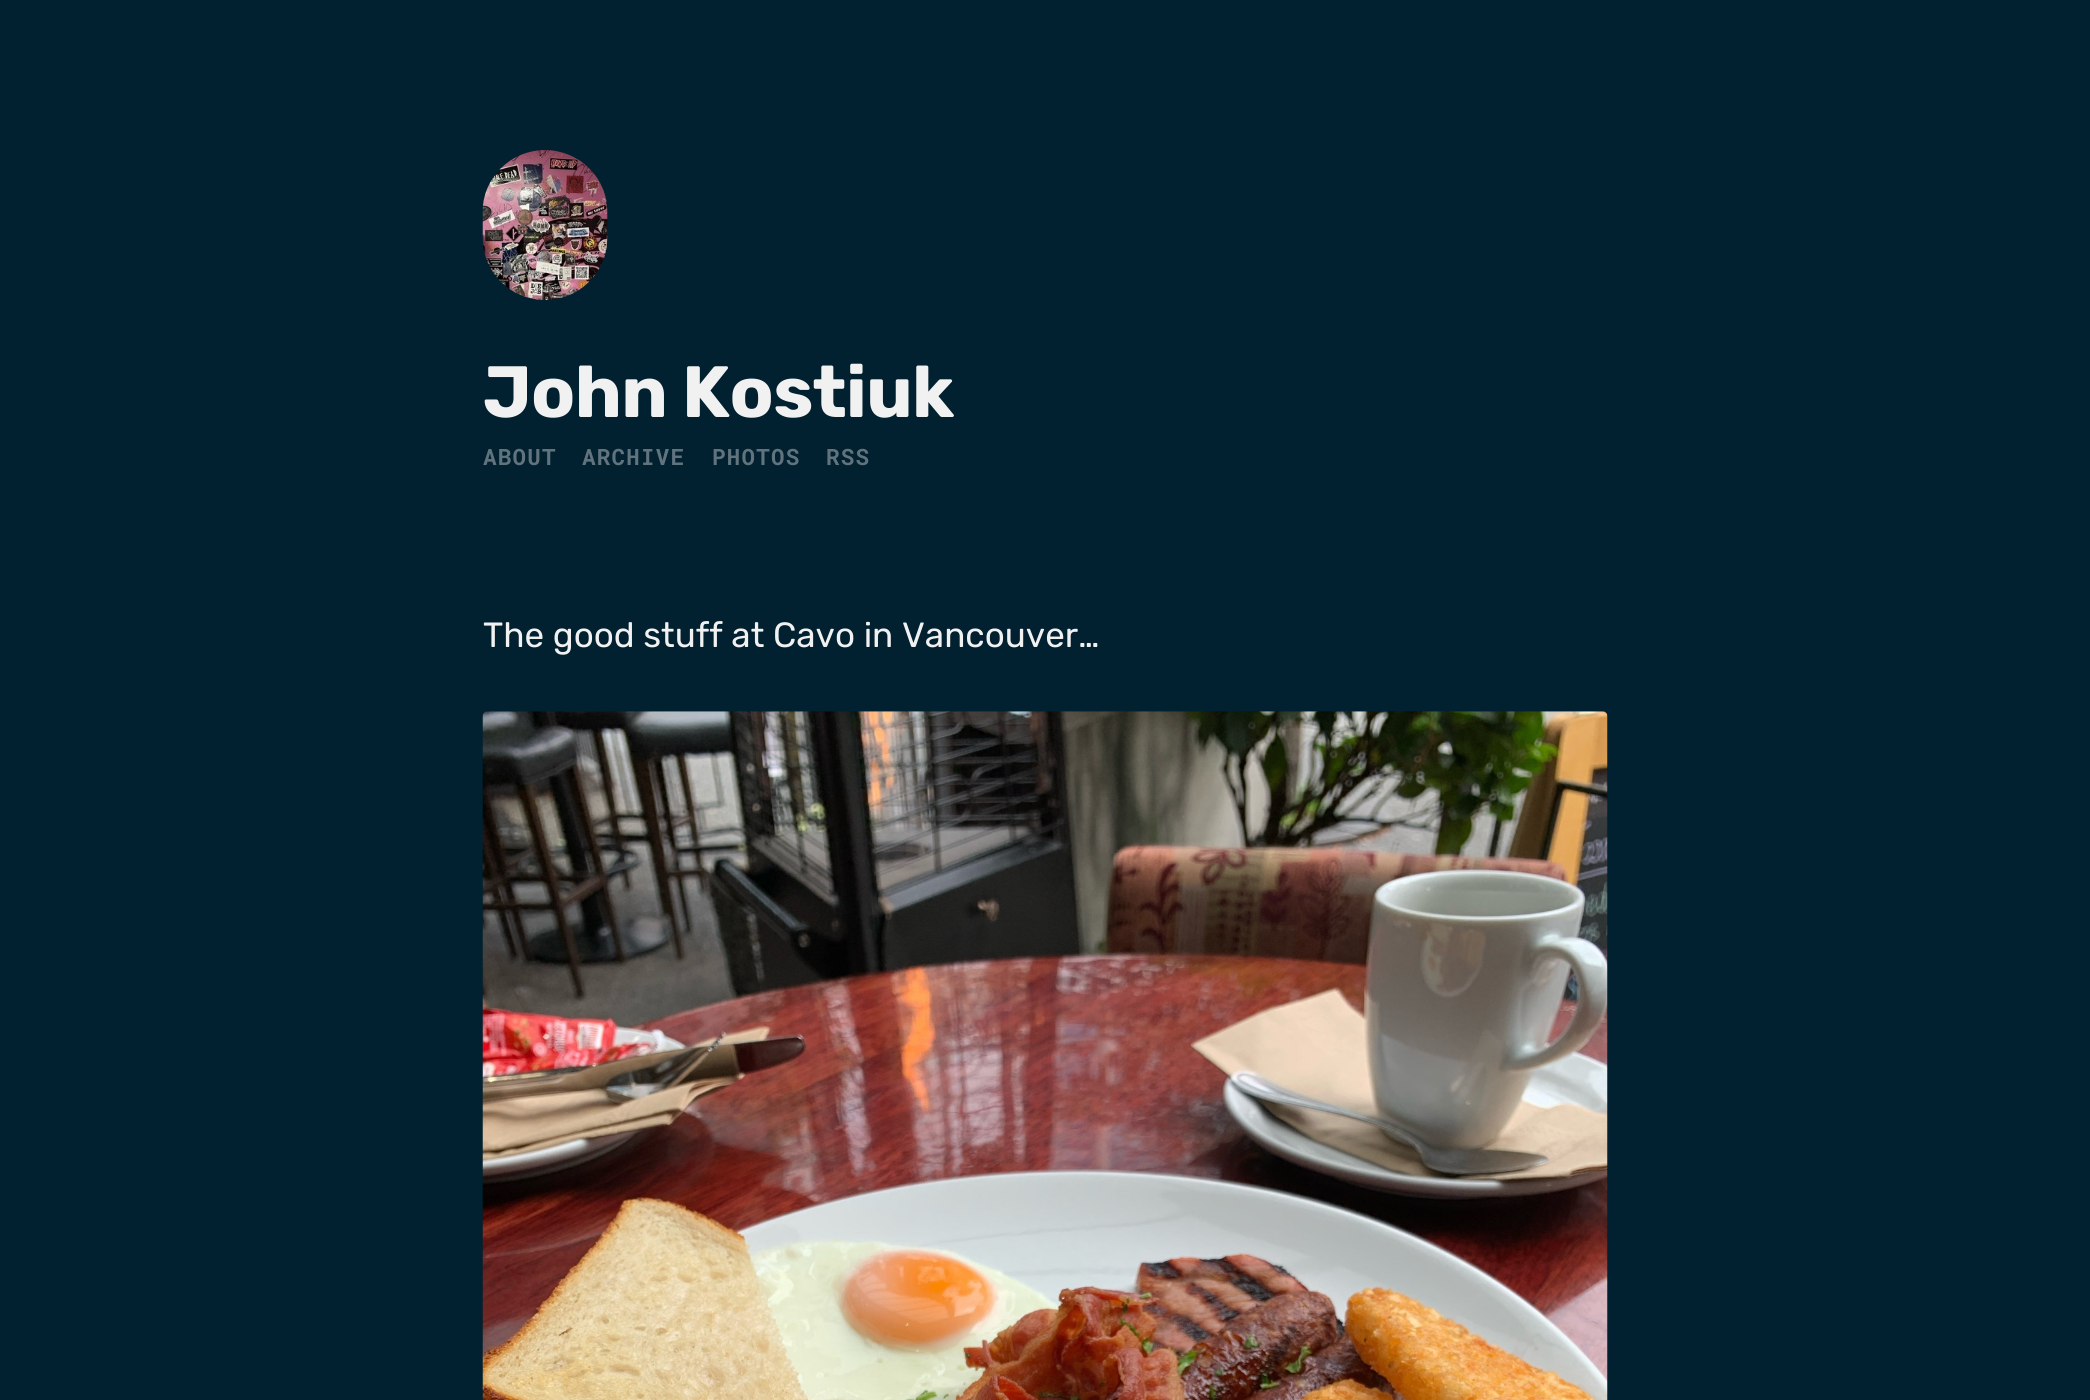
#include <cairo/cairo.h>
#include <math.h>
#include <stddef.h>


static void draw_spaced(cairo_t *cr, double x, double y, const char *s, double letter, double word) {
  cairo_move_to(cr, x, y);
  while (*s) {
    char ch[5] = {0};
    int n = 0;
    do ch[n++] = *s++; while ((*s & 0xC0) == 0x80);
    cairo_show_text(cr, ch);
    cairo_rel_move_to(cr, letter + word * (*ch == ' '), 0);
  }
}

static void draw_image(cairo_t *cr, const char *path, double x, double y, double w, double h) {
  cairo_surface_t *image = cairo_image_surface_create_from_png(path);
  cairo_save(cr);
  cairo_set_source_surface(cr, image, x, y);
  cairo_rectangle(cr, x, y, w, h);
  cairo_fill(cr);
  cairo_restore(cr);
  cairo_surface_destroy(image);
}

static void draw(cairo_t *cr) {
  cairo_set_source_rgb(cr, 1 / 255.0, 32 / 255.0, 48 / 255.0);
  cairo_paint(cr);
  draw_image(cr, "images/1.png", 482, 150, 126, 150);
  draw_image(cr, "images/2.png", 482, 711, 1126, 689);
  cairo_select_font_face(cr, "Rubik", CAIRO_FONT_SLANT_NORMAL, CAIRO_FONT_WEIGHT_BOLD);
  cairo_set_font_size(cr, 72.5);
  cairo_set_source_rgb(cr, 241 / 255.0, 241 / 255.0, 241 / 255.0);
  draw_spaced(cr, 483, 417, "John Kostiuk", -0.6, 0);
  cairo_select_font_face(cr, "Roboto Mono", CAIRO_FONT_SLANT_NORMAL, CAIRO_FONT_WEIGHT_BOLD);
  cairo_set_font_size(cr, 22.5);
  cairo_set_source_rgb(cr, 97 / 255.0, 116 / 255.0, 125 / 255.0);
  draw_spaced(cr, 483, 465, "ABOUT", 1.25, 0);
  draw_spaced(cr, 582, 465, "ARCHIVE", 1.25, 0);
  draw_spaced(cr, 712, 465, "PHOTOS", 1.25, 0);
  draw_spaced(cr, 826, 465, "RSS", 1.25, 0);
  cairo_select_font_face(cr, "Rubik", CAIRO_FONT_SLANT_NORMAL, CAIRO_FONT_WEIGHT_NORMAL);
  cairo_set_font_size(cr, 35);
  cairo_set_source_rgb(cr, 241 / 255.0, 241 / 255.0, 241 / 255.0);
  cairo_move_to(cr, 483, 647);
  cairo_show_text(cr, "The good stuff at Cavo in Vancouver…");
}

int main(void) {
  cairo_surface_t *surface = cairo_image_surface_create(CAIRO_FORMAT_RGB24, 2090, 1400);
  cairo_t *cr = cairo_create(surface);
  cairo_font_options_t *options = cairo_font_options_create();
  cairo_font_options_set_hint_metrics(options, CAIRO_HINT_METRICS_OFF);
  cairo_font_options_set_hint_style(options, CAIRO_HINT_STYLE_NONE);
  cairo_set_font_options(cr, options);
  cairo_set_miter_limit(cr, 4);
  draw(cr);
  cairo_surface_write_to_png(surface, "out.png");
  cairo_font_options_destroy(options);
  cairo_destroy(cr);
  cairo_surface_destroy(surface);
  return 0;
}
